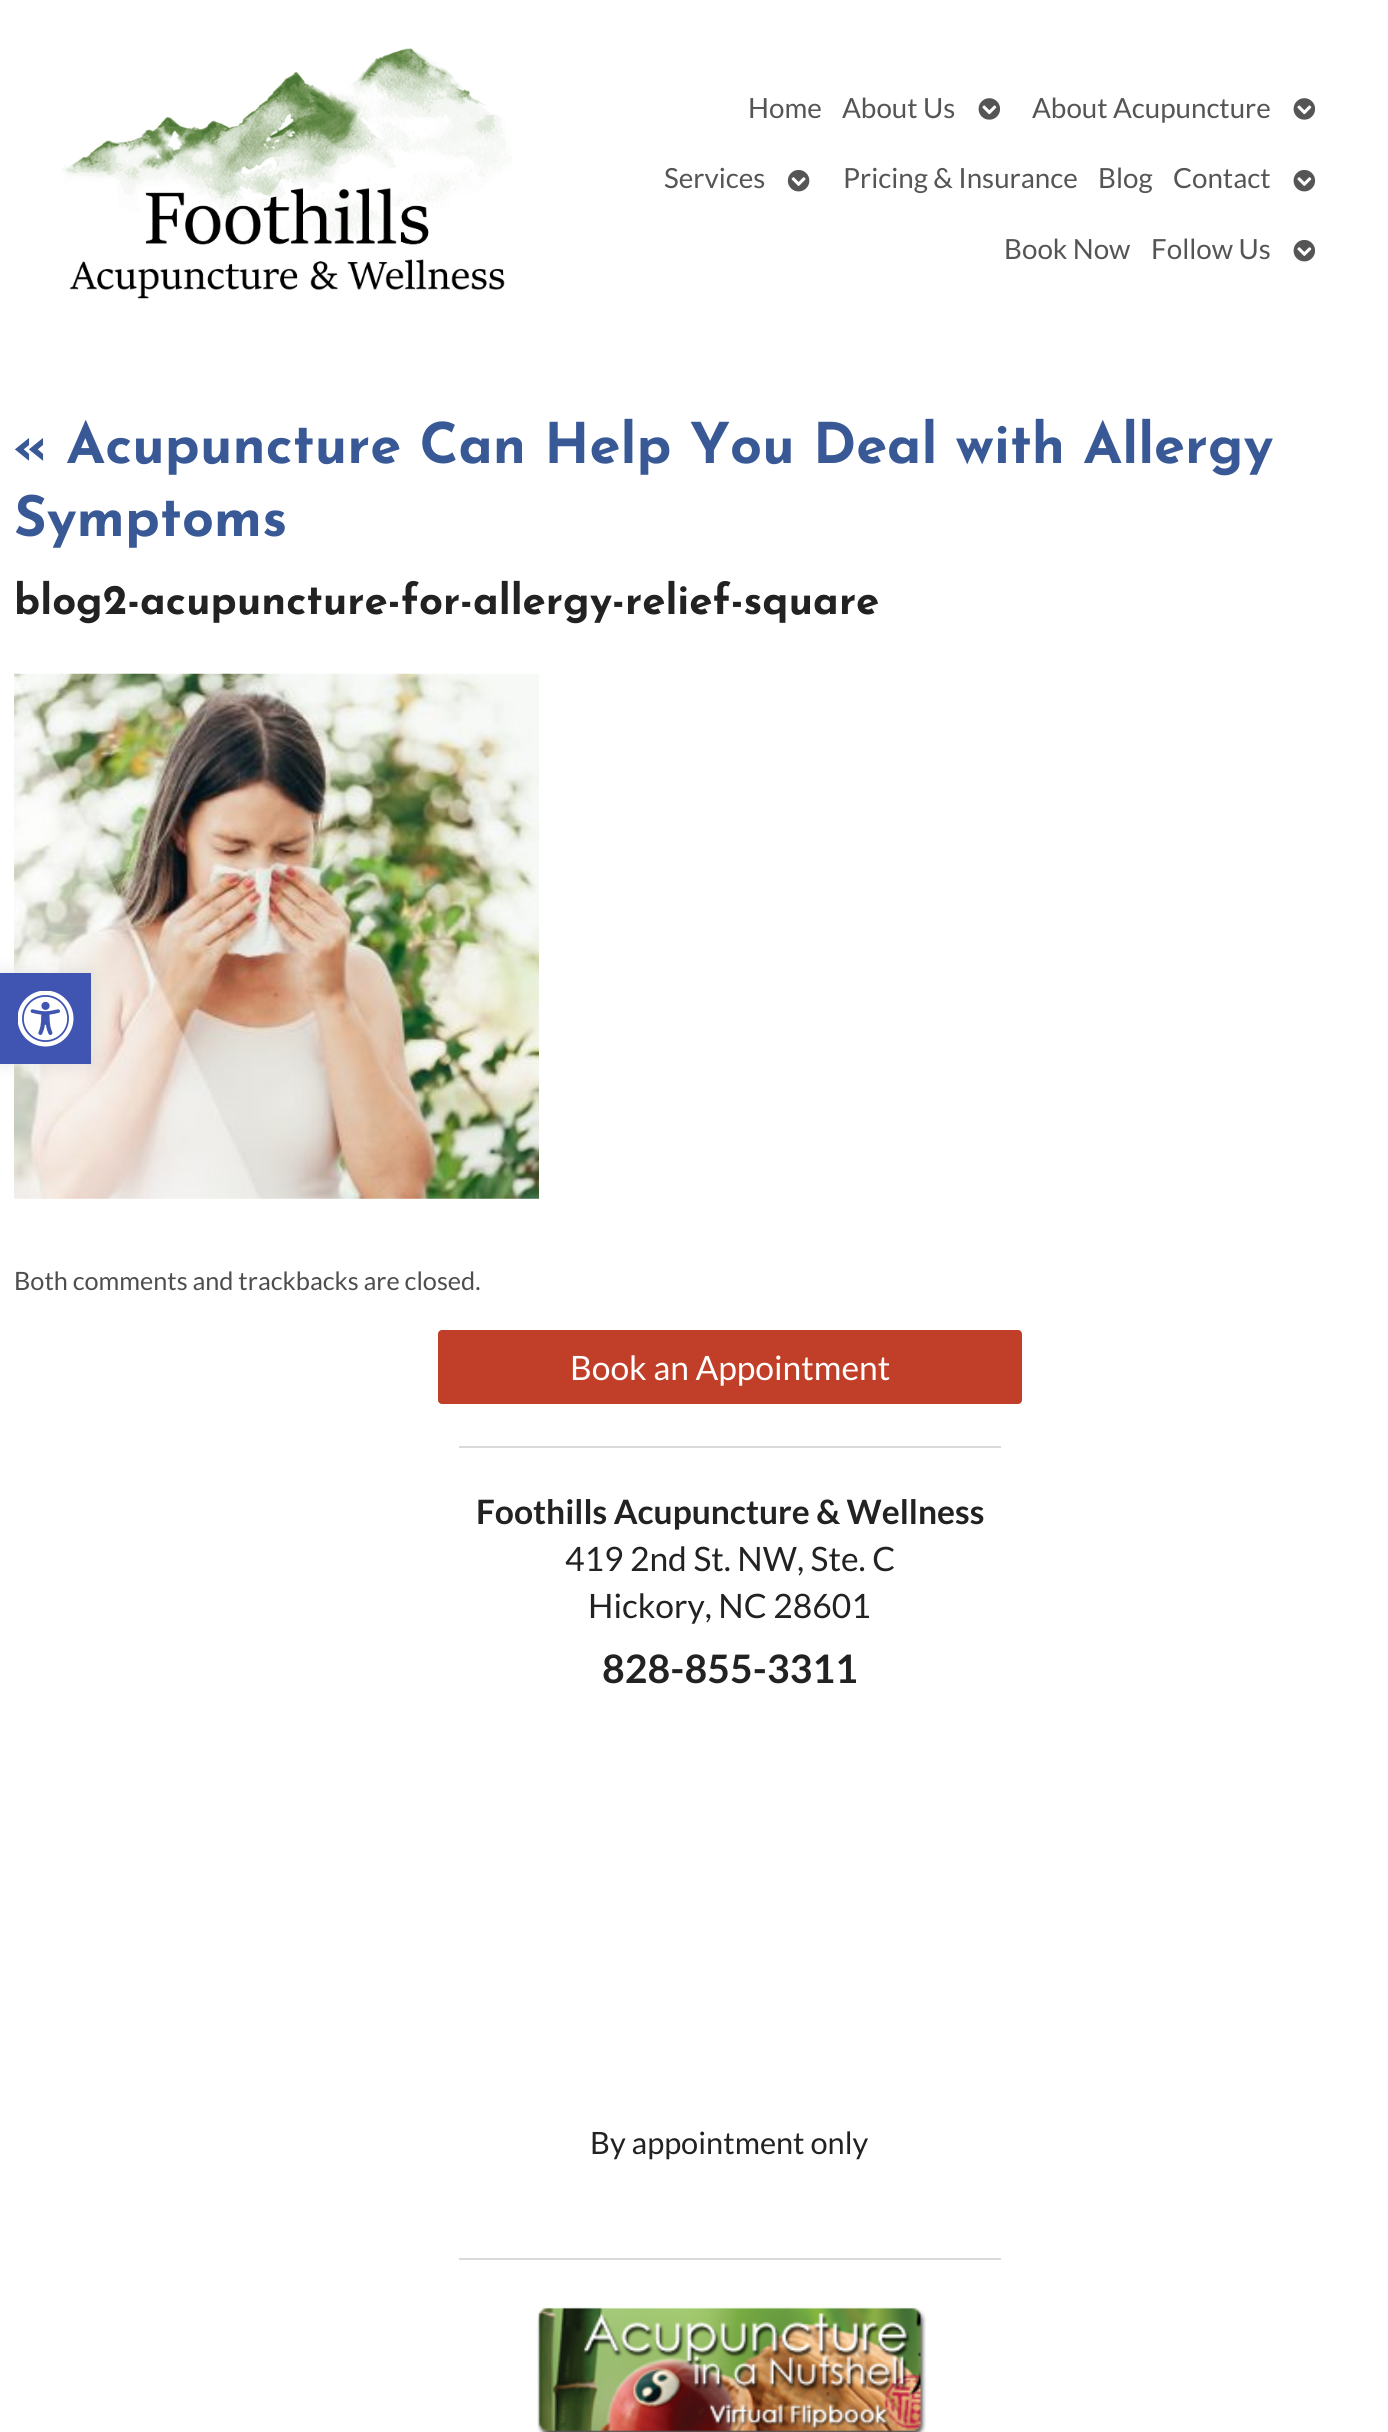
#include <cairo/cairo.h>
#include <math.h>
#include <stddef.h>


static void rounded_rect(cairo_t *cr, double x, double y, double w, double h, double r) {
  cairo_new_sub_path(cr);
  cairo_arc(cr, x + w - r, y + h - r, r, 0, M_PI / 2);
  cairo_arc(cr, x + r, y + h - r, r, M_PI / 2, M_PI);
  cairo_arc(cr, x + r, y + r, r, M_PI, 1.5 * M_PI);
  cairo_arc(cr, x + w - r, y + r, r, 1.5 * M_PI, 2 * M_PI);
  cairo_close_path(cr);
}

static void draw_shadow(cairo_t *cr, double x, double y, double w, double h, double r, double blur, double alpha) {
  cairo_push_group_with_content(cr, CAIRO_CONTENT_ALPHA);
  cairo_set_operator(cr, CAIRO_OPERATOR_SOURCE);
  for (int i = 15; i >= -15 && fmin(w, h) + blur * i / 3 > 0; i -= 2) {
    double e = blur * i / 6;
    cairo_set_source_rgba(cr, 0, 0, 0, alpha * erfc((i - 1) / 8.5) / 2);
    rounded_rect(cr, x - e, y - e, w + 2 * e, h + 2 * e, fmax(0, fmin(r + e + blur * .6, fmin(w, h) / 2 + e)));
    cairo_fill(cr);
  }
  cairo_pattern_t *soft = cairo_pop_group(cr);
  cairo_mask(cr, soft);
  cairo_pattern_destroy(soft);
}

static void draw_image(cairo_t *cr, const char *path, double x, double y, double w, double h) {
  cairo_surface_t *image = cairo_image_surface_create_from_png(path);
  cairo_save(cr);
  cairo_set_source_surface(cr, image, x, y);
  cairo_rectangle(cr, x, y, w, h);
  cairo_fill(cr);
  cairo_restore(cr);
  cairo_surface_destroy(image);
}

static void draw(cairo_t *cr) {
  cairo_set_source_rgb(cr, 1, 1, 1);
  cairo_paint(cr);
  draw_image(cr, "images/1.png", 62, 48, 450, 251);
  draw_image(cr, "images/2.png", 978, 98, 23, 22);
  draw_image(cr, "images/2.png", 1293, 98, 23, 22);
  draw_image(cr, "images/3.png", 787, 169, 23, 23);
  draw_image(cr, "images/4.png", 1293, 169, 23, 23);
  draw_image(cr, "images/4.png", 1293, 239, 23, 23);
  draw_image(cr, "images/5.png", 14, 673, 525, 526);
  cairo_set_source_rgb(cr, 193 / 255.0, 63 / 255.0, 40 / 255.0);
  rounded_rect(cr, 438, 1330, 584, 74, 4);
  cairo_fill(cr);
  cairo_set_source_rgb(cr, 217 / 255.0, 217 / 255.0, 217 / 255.0);
  cairo_rectangle(cr, 459, 1446, 542, 2);
  cairo_fill(cr);
  cairo_rectangle(cr, 459, 2258, 542, 2);
  cairo_fill(cr);
  draw_image(cr, "images/6.png", 537, 2307, 389, 125);
  cairo_set_source_rgb(cr, 0, 0, 0);
  draw_shadow(cr, 0, 973, 91, 91, 0, 9, 0.1);
  cairo_set_source_rgb(cr, 64 / 255.0, 84 / 255.0, 178 / 255.0);
  cairo_rectangle(cr, 0, 973, 91, 91);
  cairo_fill(cr);
  draw_image(cr, "images/7.png", 18, 991, 56, 56);
  cairo_select_font_face(cr, "Lato", CAIRO_FONT_SLANT_NORMAL, CAIRO_FONT_WEIGHT_NORMAL);
  cairo_set_font_size(cr, 27.75);
  cairo_set_source_rgb(cr, 85 / 255.0, 85 / 255.0, 85 / 255.0);
  cairo_move_to(cr, 748, 118);
  cairo_show_text(cr, "Home");
  cairo_move_to(cr, 842, 118);
  cairo_show_text(cr, "About Us");
  cairo_move_to(cr, 1032, 118);
  cairo_show_text(cr, "About Acupuncture");
  cairo_move_to(cr, 664, 188);
  cairo_show_text(cr, "Services");
  cairo_move_to(cr, 843, 188);
  cairo_show_text(cr, "Pricing & Insurance");
  cairo_move_to(cr, 1098, 188);
  cairo_show_text(cr, "Blog");
  cairo_move_to(cr, 1173, 188);
  cairo_show_text(cr, "Contact");
  cairo_move_to(cr, 1004, 259);
  cairo_show_text(cr, "Book Now");
  cairo_move_to(cr, 1151, 259);
  cairo_show_text(cr, "Follow Us");
  cairo_select_font_face(cr, "Josefin Sans", CAIRO_FONT_SLANT_NORMAL, CAIRO_FONT_WEIGHT_BOLD);
  cairo_set_font_size(cr, 56);
  cairo_set_source_rgb(cr, 57 / 255.0, 89 / 255.0, 150 / 255.0);
  cairo_move_to(cr, 14, 463);
  cairo_show_text(cr, "« Acupuncture Can Help You Deal with Allergy");
  cairo_move_to(cr, 14, 536);
  cairo_show_text(cr, "Symptoms");
  cairo_set_font_size(cr, 42);
  cairo_set_source_rgb(cr, 34 / 255.0, 34 / 255.0, 34 / 255.0);
  cairo_move_to(cr, 14, 614);
  cairo_show_text(cr, "blog2-acupuncture-for-allergy-relief-square");
  cairo_select_font_face(cr, "Lato", CAIRO_FONT_SLANT_NORMAL, CAIRO_FONT_WEIGHT_NORMAL);
  cairo_set_font_size(cr, 25.25);
  cairo_set_source_rgb(cr, 78 / 255.0, 78 / 255.0, 78 / 255.0);
  cairo_move_to(cr, 14, 1290);
  cairo_show_text(cr, "Both comments and trackbacks are closed.");
  cairo_set_font_size(cr, 33.6);
  cairo_set_source_rgb(cr, 1, 1, 1);
  cairo_move_to(cr, 570, 1380);
  cairo_show_text(cr, "Book an Appointment");
  cairo_select_font_face(cr, "Lato", CAIRO_FONT_SLANT_NORMAL, CAIRO_FONT_WEIGHT_BOLD);
  cairo_set_source_rgb(cr, 34 / 255.0, 34 / 255.0, 34 / 255.0);
  cairo_move_to(cr, 476, 1524);
  cairo_show_text(cr, "Foothills Acupuncture & Wellness");
  cairo_select_font_face(cr, "Lato", CAIRO_FONT_SLANT_NORMAL, CAIRO_FONT_WEIGHT_NORMAL);
  cairo_move_to(cr, 565, 1571);
  cairo_show_text(cr, "419 2nd St. NW, Ste. C");
  cairo_move_to(cr, 588, 1618);
  cairo_show_text(cr, "Hickory, NC 28601");
  cairo_select_font_face(cr, "Lato", CAIRO_FONT_SLANT_NORMAL, CAIRO_FONT_WEIGHT_BOLD);
  cairo_set_font_size(cr, 39.25);
  cairo_move_to(cr, 602, 1683);
  cairo_show_text(cr, "828-855-3311");
  cairo_select_font_face(cr, "Lato", CAIRO_FONT_SLANT_NORMAL, CAIRO_FONT_WEIGHT_NORMAL);
  cairo_set_font_size(cr, 30.75);
  cairo_move_to(cr, 590, 2154);
  cairo_show_text(cr, "By appointment only");
}

int main(void) {
  cairo_surface_t *surface = cairo_image_surface_create(CAIRO_FORMAT_RGB24, 1388, 2432);
  cairo_t *cr = cairo_create(surface);
  cairo_font_options_t *options = cairo_font_options_create();
  cairo_font_options_set_hint_metrics(options, CAIRO_HINT_METRICS_OFF);
  cairo_font_options_set_hint_style(options, CAIRO_HINT_STYLE_NONE);
  cairo_set_font_options(cr, options);
  cairo_set_miter_limit(cr, 4);
  draw(cr);
  cairo_surface_write_to_png(surface, "out.png");
  cairo_font_options_destroy(options);
  cairo_destroy(cr);
  cairo_surface_destroy(surface);
  return 0;
}
